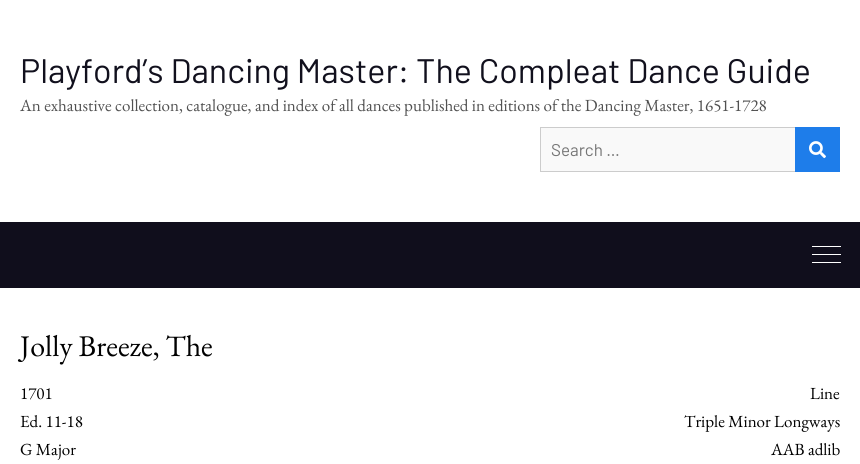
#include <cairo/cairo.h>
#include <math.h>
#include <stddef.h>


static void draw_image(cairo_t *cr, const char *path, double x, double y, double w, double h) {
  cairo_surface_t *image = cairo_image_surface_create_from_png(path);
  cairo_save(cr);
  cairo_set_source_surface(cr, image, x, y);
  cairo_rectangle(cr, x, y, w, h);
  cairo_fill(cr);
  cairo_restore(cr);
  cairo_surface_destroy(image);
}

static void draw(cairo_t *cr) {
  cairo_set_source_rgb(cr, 1, 1, 1);
  cairo_paint(cr);
  cairo_set_source_rgb(cr, 249 / 255.0, 249 / 255.0, 249 / 255.0);
  cairo_rectangle(cr, 541, 128, 254, 43);
  cairo_fill(cr);
  cairo_rectangle(cr, 540.5, 127.5, 299, 44);
  cairo_set_source_rgb(cr, 204 / 255.0, 204 / 255.0, 204 / 255.0);
  cairo_set_line_width(cr, 1);
  cairo_stroke(cr);
  cairo_set_source_rgb(cr, 30 / 255.0, 125 / 255.0, 234 / 255.0);
  cairo_rectangle(cr, 795, 127, 45, 45);
  cairo_fill(cr);
  draw_image(cr, "images/1.png", 809, 141, 17, 18);
  cairo_set_source_rgb(cr, 16 / 255.0, 14 / 255.0, 28 / 255.0);
  cairo_rectangle(cr, 0, 222, 860, 66);
  cairo_fill(cr);
  cairo_set_source_rgb(cr, 1, 1, 1);
  cairo_rectangle(cr, 812, 246, 29, 1);
  cairo_fill(cr);
  cairo_rectangle(cr, 812, 254, 29, 1);
  cairo_fill(cr);
  cairo_rectangle(cr, 812, 262, 29, 1);
  cairo_fill(cr);
  cairo_select_font_face(cr, "Barlow", CAIRO_FONT_SLANT_NORMAL, CAIRO_FONT_WEIGHT_NORMAL);
  cairo_set_font_size(cr, 34);
  cairo_set_source_rgb(cr, 17 / 255.0, 16 / 255.0, 29 / 255.0);
  cairo_move_to(cr, 20, 83);
  cairo_show_text(cr, "Playford’s Dancing Master: The Compleat Dance Guide");
  cairo_select_font_face(cr, "EB Garamond", CAIRO_FONT_SLANT_NORMAL, CAIRO_FONT_WEIGHT_NORMAL);
  cairo_set_font_size(cr, 17);
  cairo_set_source_rgb(cr, 81 / 255.0, 81 / 255.0, 81 / 255.0);
  cairo_move_to(cr, 20, 111);
  cairo_show_text(cr, "An exhaustive collection, catalogue, and index of all dances published in editions of the Dancing Master, 1651-1728");
  cairo_select_font_face(cr, "Barlow", CAIRO_FONT_SLANT_NORMAL, CAIRO_FONT_WEIGHT_NORMAL);
  cairo_set_source_rgb(cr, 117 / 255.0, 117 / 255.0, 117 / 255.0);
  cairo_move_to(cr, 551, 156);
  cairo_show_text(cr, "Search …");
  cairo_select_font_face(cr, "EB Garamond", CAIRO_FONT_SLANT_NORMAL, CAIRO_FONT_WEIGHT_NORMAL);
  cairo_set_font_size(cr, 30);
  cairo_set_source_rgb(cr, 0, 0, 0);
  cairo_move_to(cr, 20, 356);
  cairo_show_text(cr, "Jolly Breeze, The");
  cairo_set_font_size(cr, 17);
  cairo_move_to(cr, 20, 399);
  cairo_show_text(cr, "1701");
  cairo_move_to(cr, 810, 399);
  cairo_show_text(cr, "Line");
  cairo_move_to(cr, 20, 427);
  cairo_show_text(cr, "Ed. 11-18");
  cairo_move_to(cr, 684, 427);
  cairo_show_text(cr, "Triple Minor Longways");
  cairo_move_to(cr, 20, 455);
  cairo_show_text(cr, "G Major");
  cairo_move_to(cr, 771, 455);
  cairo_show_text(cr, "AAB adlib");
}

int main(void) {
  cairo_surface_t *surface = cairo_image_surface_create(CAIRO_FORMAT_RGB24, 860, 464);
  cairo_t *cr = cairo_create(surface);
  cairo_font_options_t *options = cairo_font_options_create();
  cairo_font_options_set_hint_metrics(options, CAIRO_HINT_METRICS_OFF);
  cairo_font_options_set_hint_style(options, CAIRO_HINT_STYLE_NONE);
  cairo_set_font_options(cr, options);
  cairo_set_miter_limit(cr, 4);
  draw(cr);
  cairo_surface_write_to_png(surface, "out.png");
  cairo_font_options_destroy(options);
  cairo_destroy(cr);
  cairo_surface_destroy(surface);
  return 0;
}
